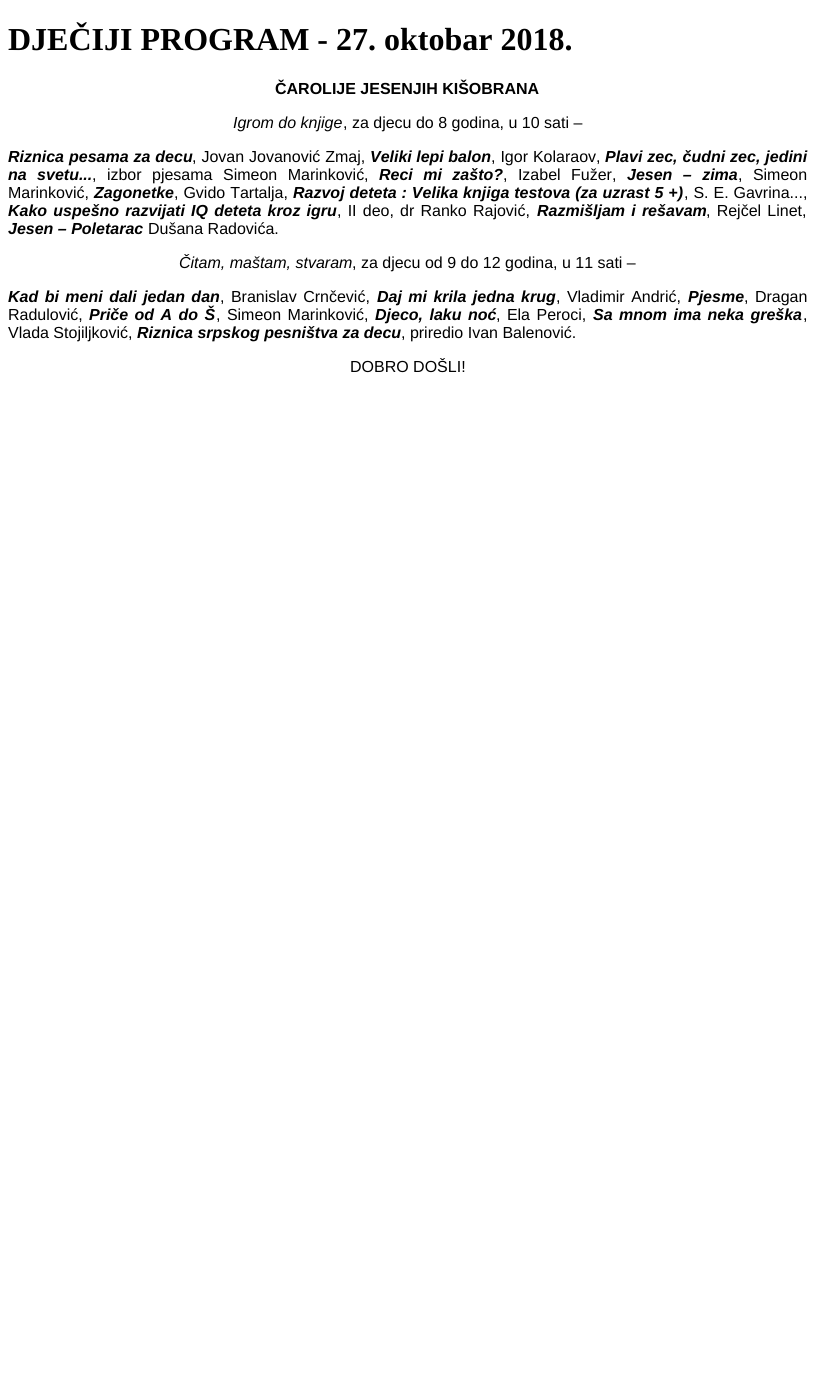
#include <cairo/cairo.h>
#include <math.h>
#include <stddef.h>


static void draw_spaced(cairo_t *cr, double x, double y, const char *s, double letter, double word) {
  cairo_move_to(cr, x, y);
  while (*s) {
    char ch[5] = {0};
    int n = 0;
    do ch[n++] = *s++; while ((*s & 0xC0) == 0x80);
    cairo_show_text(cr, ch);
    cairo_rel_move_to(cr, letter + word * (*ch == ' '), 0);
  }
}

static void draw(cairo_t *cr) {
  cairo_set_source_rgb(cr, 1, 1, 1);
  cairo_paint(cr);
  cairo_select_font_face(cr, "Liberation Serif", CAIRO_FONT_SLANT_NORMAL, CAIRO_FONT_WEIGHT_BOLD);
  cairo_set_font_size(cr, 32);
  cairo_set_source_rgb(cr, 0, 0, 0);
  cairo_move_to(cr, 8, 50);
  cairo_show_text(cr, "DJEČIJI PROGRAM - 27. oktobar 2018.");
  cairo_select_font_face(cr, "Liberation Sans", CAIRO_FONT_SLANT_NORMAL, CAIRO_FONT_WEIGHT_BOLD);
  cairo_set_font_size(cr, 16);
  cairo_move_to(cr, 275, 94);
  cairo_show_text(cr, "ČAROLIJE JESENЈIH KIŠOBRANA");
  cairo_select_font_face(cr, "Liberation Sans", CAIRO_FONT_SLANT_ITALIC, CAIRO_FONT_WEIGHT_NORMAL);
  cairo_move_to(cr, 233, 128);
  cairo_show_text(cr, "Igrom do knjige");
  cairo_select_font_face(cr, "Liberation Sans", CAIRO_FONT_SLANT_NORMAL, CAIRO_FONT_WEIGHT_NORMAL);
  cairo_move_to(cr, 343, 128);
  cairo_show_text(cr, ", za djecu do 8 godina, u 10 sati –");
  cairo_select_font_face(cr, "Liberation Sans", CAIRO_FONT_SLANT_ITALIC, CAIRO_FONT_WEIGHT_BOLD);
  draw_spaced(cr, 8, 162, "Riznica pesama za decu", 0, 0.5);
  cairo_select_font_face(cr, "Liberation Sans", CAIRO_FONT_SLANT_NORMAL, CAIRO_FONT_WEIGHT_NORMAL);
  draw_spaced(cr, 192, 162, ", Jovan Jovanović Zmaj,", 0, 0.5);
  cairo_select_font_face(cr, "Liberation Sans", CAIRO_FONT_SLANT_ITALIC, CAIRO_FONT_WEIGHT_BOLD);
  cairo_move_to(cr, 370, 162);
  cairo_show_text(cr, "Veliki lepi balon");
  cairo_select_font_face(cr, "Liberation Sans", CAIRO_FONT_SLANT_NORMAL, CAIRO_FONT_WEIGHT_NORMAL);
  draw_spaced(cr, 491, 162, ", Igor Kolaraov,", 0, 0.5);
  cairo_select_font_face(cr, "Liberation Sans", CAIRO_FONT_SLANT_ITALIC, CAIRO_FONT_WEIGHT_BOLD);
  draw_spaced(cr, 605, 162, "Plavi zec, čudni zec, jedini", 0, 0.5);
  draw_spaced(cr, 8, 180, "na svetu...", 0, 6);
  cairo_select_font_face(cr, "Liberation Sans", CAIRO_FONT_SLANT_NORMAL, CAIRO_FONT_WEIGHT_NORMAL);
  draw_spaced(cr, 92, 180, ", izbor pjesama", 0, 6);
  draw_spaced(cr, 223, 180, "Simeon Marinković", 0, 6);
  cairo_move_to(cr, 364, 180);
  cairo_show_text(cr, ",");
  cairo_select_font_face(cr, "Liberation Sans", CAIRO_FONT_SLANT_ITALIC, CAIRO_FONT_WEIGHT_BOLD);
  draw_spaced(cr, 379, 180, "Reci mi zašto?", 0, 6);
  cairo_select_font_face(cr, "Liberation Sans", CAIRO_FONT_SLANT_NORMAL, CAIRO_FONT_WEIGHT_NORMAL);
  draw_spaced(cr, 503, 180, ", Izabel Fužer,", 0, 6);
  cairo_select_font_face(cr, "Liberation Sans", CAIRO_FONT_SLANT_ITALIC, CAIRO_FONT_WEIGHT_BOLD);
  draw_spaced(cr, 627, 180, "Jesen – zima", 0, 6);
  cairo_select_font_face(cr, "Liberation Sans", CAIRO_FONT_SLANT_NORMAL, CAIRO_FONT_WEIGHT_NORMAL);
  draw_spaced(cr, 738, 180, ", Simeon", 0, 6);
  cairo_move_to(cr, 8, 198);
  cairo_show_text(cr, "Marinković,");
  cairo_select_font_face(cr, "Liberation Sans", CAIRO_FONT_SLANT_ITALIC, CAIRO_FONT_WEIGHT_BOLD);
  cairo_move_to(cr, 94, 198);
  cairo_show_text(cr, "Zagonetke");
  cairo_select_font_face(cr, "Liberation Sans", CAIRO_FONT_SLANT_NORMAL, CAIRO_FONT_WEIGHT_NORMAL);
  draw_spaced(cr, 174, 198, ", Gvido Tartalja,", 0, 0.5);
  cairo_select_font_face(cr, "Liberation Sans", CAIRO_FONT_SLANT_ITALIC, CAIRO_FONT_WEIGHT_BOLD);
  draw_spaced(cr, 293, 198, "Razvoj deteta : Velika knjiga testova (za uzrast 5 +)", 0, 0.5);
  cairo_select_font_face(cr, "Liberation Sans", CAIRO_FONT_SLANT_NORMAL, CAIRO_FONT_WEIGHT_NORMAL);
  draw_spaced(cr, 684, 198, ", S. E. Gavrina...,", 0, 0.5);
  cairo_select_font_face(cr, "Liberation Sans", CAIRO_FONT_SLANT_ITALIC, CAIRO_FONT_WEIGHT_BOLD);
  draw_spaced(cr, 8, 216, "Kako uspešno razvijati IQ deteta kroz igru", 0, 1.75);
  cairo_select_font_face(cr, "Liberation Sans", CAIRO_FONT_SLANT_NORMAL, CAIRO_FONT_WEIGHT_NORMAL);
  draw_spaced(cr, 337, 216, ", II deo, dr Ranko Rajović,", 0, 1.75);
  cairo_select_font_face(cr, "Liberation Sans", CAIRO_FONT_SLANT_ITALIC, CAIRO_FONT_WEIGHT_BOLD);
  draw_spaced(cr, 537, 216, "Razmišljam i rešavam", 0, 1.75);
  cairo_select_font_face(cr, "Liberation Sans", CAIRO_FONT_SLANT_NORMAL, CAIRO_FONT_WEIGHT_NORMAL);
  draw_spaced(cr, 706, 216, ", Rejčel Linet,", 0, 1.75);
  cairo_select_font_face(cr, "Liberation Sans", CAIRO_FONT_SLANT_ITALIC, CAIRO_FONT_WEIGHT_BOLD);
  cairo_move_to(cr, 8, 234);
  cairo_show_text(cr, "Jesen – Poletarac");
  cairo_select_font_face(cr, "Liberation Sans", CAIRO_FONT_SLANT_NORMAL, CAIRO_FONT_WEIGHT_NORMAL);
  cairo_move_to(cr, 148, 234);
  cairo_show_text(cr, "Dušana Radovića.");
  cairo_select_font_face(cr, "Liberation Sans", CAIRO_FONT_SLANT_ITALIC, CAIRO_FONT_WEIGHT_NORMAL);
  cairo_move_to(cr, 179, 268);
  cairo_show_text(cr, "Čitam, maštam, stvaram");
  cairo_select_font_face(cr, "Liberation Sans", CAIRO_FONT_SLANT_NORMAL, CAIRO_FONT_WEIGHT_NORMAL);
  cairo_move_to(cr, 352, 268);
  cairo_show_text(cr, ", za djecu od 9 do 12 godina, u 11 sati –");
  cairo_select_font_face(cr, "Liberation Sans", CAIRO_FONT_SLANT_ITALIC, CAIRO_FONT_WEIGHT_BOLD);
  draw_spaced(cr, 8, 302, "Kad bi meni dali jedan dan", 0, 2);
  cairo_select_font_face(cr, "Liberation Sans", CAIRO_FONT_SLANT_NORMAL, CAIRO_FONT_WEIGHT_NORMAL);
  draw_spaced(cr, 220, 302, ", Branislav Crnčević,", 0, 2);
  cairo_select_font_face(cr, "Liberation Sans", CAIRO_FONT_SLANT_ITALIC, CAIRO_FONT_WEIGHT_BOLD);
  draw_spaced(cr, 377, 302, "Daj mi krila jedna krug", 0, 2);
  cairo_select_font_face(cr, "Liberation Sans", CAIRO_FONT_SLANT_NORMAL, CAIRO_FONT_WEIGHT_NORMAL);
  draw_spaced(cr, 556, 302, ", Vladimir Andrić,", 0, 2);
  cairo_select_font_face(cr, "Liberation Sans", CAIRO_FONT_SLANT_ITALIC, CAIRO_FONT_WEIGHT_BOLD);
  cairo_move_to(cr, 688, 302);
  cairo_show_text(cr, "Pjesme");
  cairo_select_font_face(cr, "Liberation Sans", CAIRO_FONT_SLANT_NORMAL, CAIRO_FONT_WEIGHT_NORMAL);
  draw_spaced(cr, 744, 302, ", Dragan", 0, 2);
  cairo_move_to(cr, 8, 320);
  cairo_show_text(cr, "Radulović,");
  cairo_select_font_face(cr, "Liberation Sans", CAIRO_FONT_SLANT_ITALIC, CAIRO_FONT_WEIGHT_BOLD);
  draw_spaced(cr, 89, 320, "Priče od A do Š", 0, 2);
  cairo_select_font_face(cr, "Liberation Sans", CAIRO_FONT_SLANT_NORMAL, CAIRO_FONT_WEIGHT_NORMAL);
  draw_spaced(cr, 216, 320, ", Simeon Marinković,", 0, 2);
  cairo_select_font_face(cr, "Liberation Sans", CAIRO_FONT_SLANT_ITALIC, CAIRO_FONT_WEIGHT_BOLD);
  draw_spaced(cr, 375, 320, "Djeco, laku noć", 0, 2);
  cairo_select_font_face(cr, "Liberation Sans", CAIRO_FONT_SLANT_NORMAL, CAIRO_FONT_WEIGHT_NORMAL);
  draw_spaced(cr, 496, 320, ", Ela Peroci,", 0, 2);
  cairo_select_font_face(cr, "Liberation Sans", CAIRO_FONT_SLANT_ITALIC, CAIRO_FONT_WEIGHT_BOLD);
  draw_spaced(cr, 593, 320, "Sa mnom ima neka greška", 0, 2);
  cairo_select_font_face(cr, "Liberation Sans", CAIRO_FONT_SLANT_NORMAL, CAIRO_FONT_WEIGHT_NORMAL);
  cairo_move_to(cr, 803, 320);
  cairo_show_text(cr, ",");
  cairo_move_to(cr, 8, 338);
  cairo_show_text(cr, "Vlada Stojiljković,");
  cairo_select_font_face(cr, "Liberation Sans", CAIRO_FONT_SLANT_ITALIC, CAIRO_FONT_WEIGHT_BOLD);
  cairo_move_to(cr, 137, 338);
  cairo_show_text(cr, "Riznica srpskog pesništva za decu");
  cairo_select_font_face(cr, "Liberation Sans", CAIRO_FONT_SLANT_NORMAL, CAIRO_FONT_WEIGHT_NORMAL);
  cairo_move_to(cr, 401, 338);
  cairo_show_text(cr, ", priredio Ivan Balenović.");
  cairo_move_to(cr, 350, 372);
  cairo_show_text(cr, "DOBRO DOŠLI!");
}

int main(void) {
  cairo_surface_t *surface = cairo_image_surface_create(CAIRO_FORMAT_RGB24, 815, 1375);
  cairo_t *cr = cairo_create(surface);
  cairo_font_options_t *options = cairo_font_options_create();
  cairo_font_options_set_hint_metrics(options, CAIRO_HINT_METRICS_OFF);
  cairo_font_options_set_hint_style(options, CAIRO_HINT_STYLE_NONE);
  cairo_set_font_options(cr, options);
  cairo_set_miter_limit(cr, 4);
  draw(cr);
  cairo_surface_write_to_png(surface, "out.png");
  cairo_font_options_destroy(options);
  cairo_destroy(cr);
  cairo_surface_destroy(surface);
  return 0;
}
